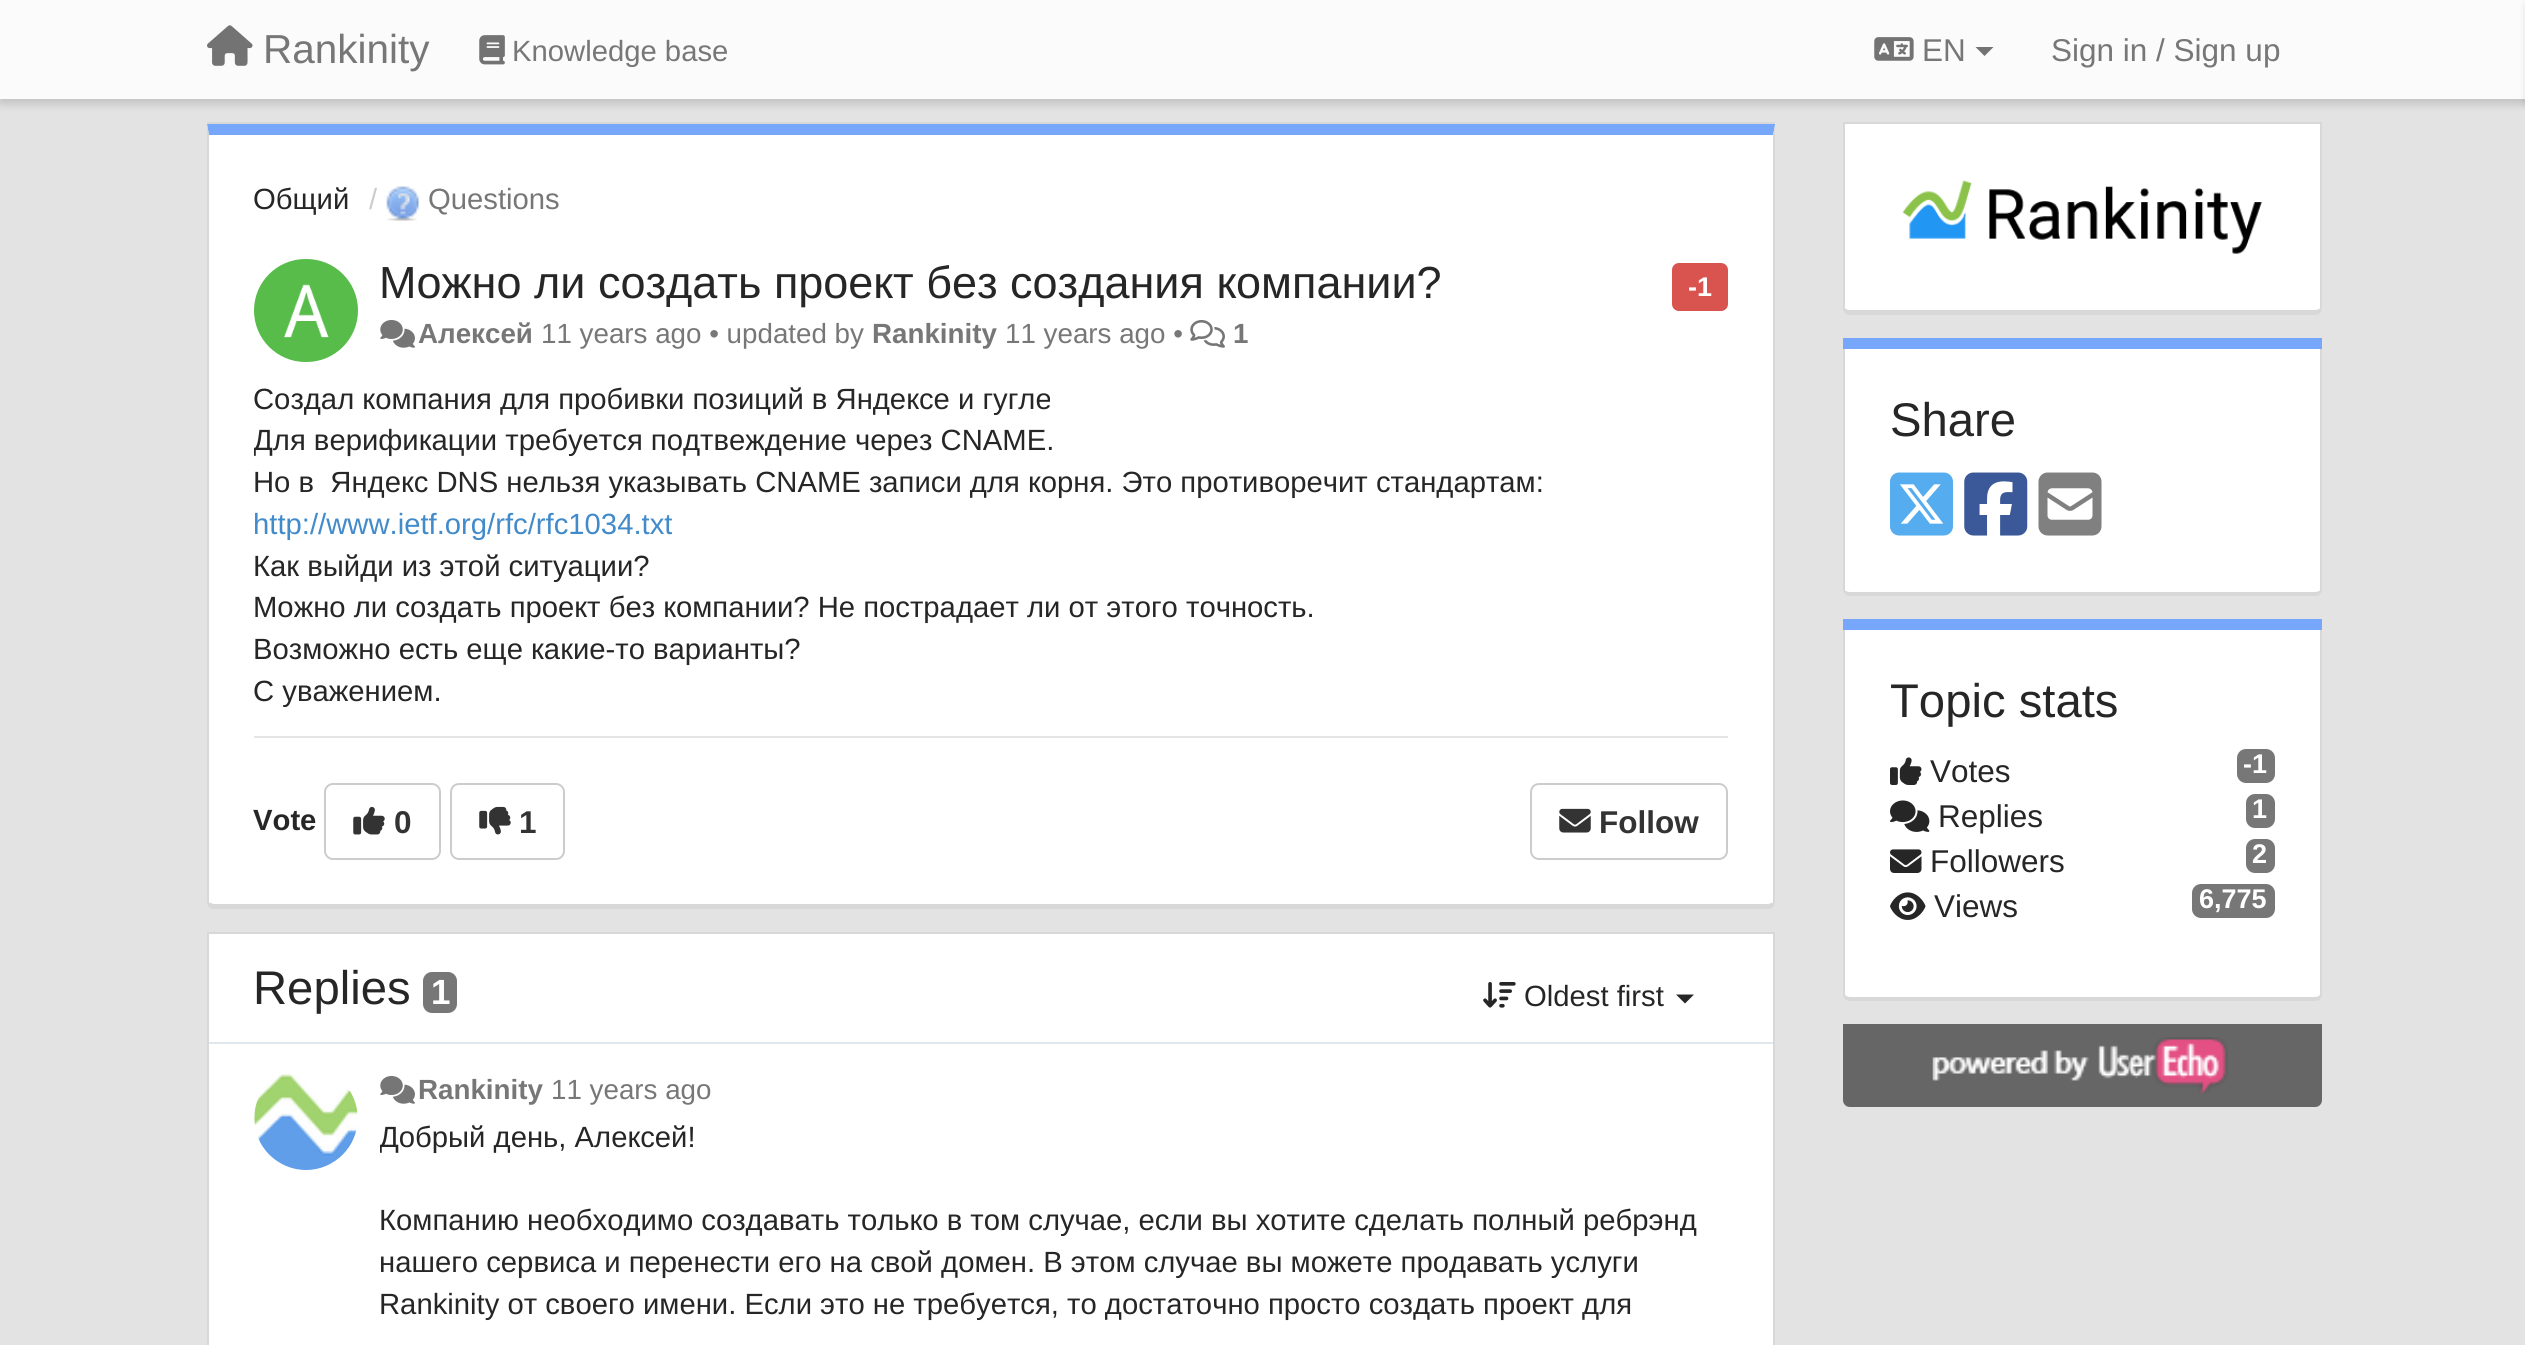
#include <cairo/cairo.h>
#include <math.h>
#include <stddef.h>


static void rounded_rect(cairo_t *cr, double x, double y, double w, double h, double r) {
  cairo_new_sub_path(cr);
  cairo_arc(cr, x + w - r, y + h - r, r, 0, M_PI / 2);
  cairo_arc(cr, x + r, y + h - r, r, M_PI / 2, M_PI);
  cairo_arc(cr, x + r, y + r, r, M_PI, 1.5 * M_PI);
  cairo_arc(cr, x + w - r, y + r, r, 1.5 * M_PI, 2 * M_PI);
  cairo_close_path(cr);
}

static void draw_shadow(cairo_t *cr, double x, double y, double w, double h, double r, double blur, double alpha) {
  cairo_push_group_with_content(cr, CAIRO_CONTENT_ALPHA);
  cairo_set_operator(cr, CAIRO_OPERATOR_SOURCE);
  for (int i = 15; i >= -15 && fmin(w, h) + blur * i / 3 > 0; i -= 2) {
    double e = blur * i / 6;
    cairo_set_source_rgba(cr, 0, 0, 0, alpha * erfc((i - 1) / 8.5) / 2);
    rounded_rect(cr, x - e, y - e, w + 2 * e, h + 2 * e, fmax(0, fmin(r + e + blur * .6, fmin(w, h) / 2 + e)));
    cairo_fill(cr);
  }
  cairo_pattern_t *soft = cairo_pop_group(cr);
  cairo_mask(cr, soft);
  cairo_pattern_destroy(soft);
}

static void draw_image(cairo_t *cr, const char *path, double x, double y, double w, double h) {
  cairo_surface_t *image = cairo_image_surface_create_from_png(path);
  cairo_save(cr);
  cairo_set_source_surface(cr, image, x, y);
  cairo_rectangle(cr, x, y, w, h);
  cairo_fill(cr);
  cairo_restore(cr);
  cairo_surface_destroy(image);
}

static void draw(cairo_t *cr) {
  cairo_set_source_rgb(cr, 227 / 255.0, 227 / 255.0, 227 / 255.0);
  cairo_paint(cr);
  cairo_set_source_rgb(cr, 0, 0, 0);
  draw_shadow(cr, 0, 5, 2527, 99, 0, 4.5, 0.15);
  cairo_set_source_rgb(cr, 251 / 255.0, 251 / 255.0, 251 / 255.0);
  cairo_rectangle(cr, 0, 0, 2525, 99);
  cairo_fill(cr);
  draw_image(cr, "images/1.png", 207, 25, 46, 41);
  draw_image(cr, "images/2.png", 479, 35, 26, 30);
  draw_image(cr, "images/3.png", 1874, 37, 40, 24);
  cairo_set_source_rgb(cr, 115 / 255.0, 115 / 255.0, 115 / 255.0);
  cairo_new_path(cr);
  cairo_move_to(cr, 1975.5, 47);
  cairo_line_to(cr, 1993.5, 47);
  cairo_line_to(cr, 1984.5, 56);
  cairo_close_path(cr);
  cairo_fill(cr);
  cairo_set_source_rgb(cr, 0, 0, 0);
  draw_shadow(cr, 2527, 5, 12, 99, 0, 4.5, 0.15);
  cairo_set_source_rgb(cr, 216 / 255.0, 216 / 255.0, 216 / 255.0);
  cairo_rectangle(cr, 207, 122, 1568, 2);
  cairo_fill(cr);
  cairo_set_source_rgb(cr, 1, 1, 1);
  cairo_new_path(cr);
  cairo_move_to(cr, 209, 135);
  cairo_line_to(cr, 1773, 135);
  cairo_line_to(cr, 1773, 902);
  cairo_curve_to(cr, 1773, 903, 1771, 904, 1768, 904);
  cairo_line_to(cr, 214, 904);
  cairo_curve_to(cr, 211, 904, 209, 903, 209, 902);
  cairo_close_path(cr);
  cairo_fill(cr);
  cairo_set_source_rgb(cr, 118 / 255.0, 167 / 255.0, 250 / 255.0);
  cairo_new_path(cr);
  cairo_move_to(cr, 1775, 125);
  cairo_line_to(cr, 1775, 124);
  cairo_line_to(cr, 207, 124);
  cairo_line_to(cr, 209, 135);
  cairo_line_to(cr, 1773, 135);
  cairo_close_path(cr);
  cairo_fill(cr);
  cairo_set_source_rgb(cr, 216 / 255.0, 216 / 255.0, 216 / 255.0);
  cairo_new_path(cr);
  cairo_move_to(cr, 1774, 906);
  cairo_line_to(cr, 1775, 902);
  cairo_line_to(cr, 1775, 125);
  cairo_line_to(cr, 1773, 135);
  cairo_line_to(cr, 1773, 902);
  cairo_line_to(cr, 1772, 903);
  cairo_close_path(cr);
  cairo_fill(cr);
  cairo_new_path(cr);
  cairo_move_to(cr, 214, 909);
  cairo_line_to(cr, 1768, 909);
  cairo_curve_to(cr, 1770, 909, 1773, 908, 1774, 906);
  cairo_line_to(cr, 1772, 903);
  cairo_line_to(cr, 1768, 904);
  cairo_line_to(cr, 214, 904);
  cairo_line_to(cr, 210, 903);
  cairo_line_to(cr, 208, 906);
  cairo_curve_to(cr, 210, 908, 212, 909, 214, 909);
  cairo_close_path(cr);
  cairo_fill(cr);
  cairo_new_path(cr);
  cairo_move_to(cr, 209, 135);
  cairo_line_to(cr, 209, 902);
  cairo_line_to(cr, 210, 903);
  cairo_line_to(cr, 208, 906);
  cairo_curve_to(cr, 208, 905, 207, 904, 207, 902);
  cairo_line_to(cr, 207, 124);
  cairo_close_path(cr);
  cairo_fill(cr);
  draw_image(cr, "images/4.png", 386, 186, 34, 35);
  cairo_set_source_rgb(cr, 88 / 255.0, 188 / 255.0, 74 / 255.0);
  rounded_rect(cr, 254, 259, 104, 103, 51.5);
  cairo_fill(cr);
  draw_image(cr, "images/5.png", 284, 284, 45, 54);
  cairo_set_source_rgb(cr, 217 / 255.0, 83 / 255.0, 79 / 255.0);
  rounded_rect(cr, 1672, 263, 56, 48, 7);
  cairo_fill(cr);
  draw_image(cr, "images/6.png", 380, 319, 35, 29);
  draw_image(cr, "images/7.png", 1190, 319, 35, 29);
  cairo_set_source_rgb(cr, 229 / 255.0, 229 / 255.0, 229 / 255.0);
  cairo_rectangle(cr, 254, 736, 1474, 2);
  cairo_fill(cr);
  rounded_rect(cr, 325, 784, 115, 75, 8);
  cairo_set_source_rgb(cr, 204 / 255.0, 204 / 255.0, 204 / 255.0);
  cairo_stroke(cr);
  draw_image(cr, "images/8.png", 353, 806, 32, 29);
  rounded_rect(cr, 451, 784, 113, 75, 8);
  cairo_stroke(cr);
  draw_image(cr, "images/9.png", 479, 806, 32, 29);
  rounded_rect(cr, 1531, 784, 196, 75, 8);
  cairo_stroke(cr);
  draw_image(cr, "images/10.png", 1559, 808, 32, 25);
  cairo_set_source_rgb(cr, 216 / 255.0, 216 / 255.0, 216 / 255.0);
  cairo_rectangle(cr, 207, 932, 1568, 2);
  cairo_fill(cr);
  cairo_set_source_rgb(cr, 1, 1, 1);
  cairo_rectangle(cr, 209, 934, 1564, 411);
  cairo_fill(cr);
  cairo_set_source_rgb(cr, 216 / 255.0, 216 / 255.0, 216 / 255.0);
  cairo_set_fill_rule(cr, CAIRO_FILL_RULE_EVEN_ODD);
  cairo_new_path(cr);
  cairo_move_to(cr, 207, 934);
  cairo_line_to(cr, 1775, 934);
  cairo_line_to(cr, 1775, 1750);
  cairo_curve_to(cr, 1775, 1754, 1772, 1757, 1768, 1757);
  cairo_line_to(cr, 214, 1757);
  cairo_curve_to(cr, 210, 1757, 207, 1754, 207, 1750);
  cairo_close_path(cr);
  cairo_move_to(cr, 209, 934);
  cairo_line_to(cr, 1773, 934);
  cairo_line_to(cr, 1773, 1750);
  cairo_curve_to(cr, 1773, 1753, 1771, 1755, 1768, 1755);
  cairo_line_to(cr, 214, 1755);
  cairo_curve_to(cr, 211, 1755, 209, 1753, 209, 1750);
  cairo_close_path(cr);
  cairo_fill(cr);
  cairo_set_source_rgb(cr, 119 / 255.0, 119 / 255.0, 119 / 255.0);
  rounded_rect(cr, 423, 972, 34, 41, 9);
  cairo_fill(cr);
  draw_image(cr, "images/11.png", 1483, 982, 33, 26);
  cairo_set_source_rgb(cr, 38 / 255.0, 38 / 255.0, 38 / 255.0);
  cairo_set_fill_rule(cr, CAIRO_FILL_RULE_WINDING);
  cairo_new_path(cr);
  cairo_move_to(cr, 1676, 994.5);
  cairo_line_to(cr, 1694, 994.5);
  cairo_line_to(cr, 1685, 1003.5);
  cairo_close_path(cr);
  cairo_fill(cr);
  cairo_set_source_rgb(cr, 225 / 255.0, 232 / 255.0, 237 / 255.0);
  cairo_rectangle(cr, 209, 1042, 1564, 2);
  cairo_fill(cr);
  draw_image(cr, "images/12.png", 254, 1074, 104, 96);
  draw_image(cr, "images/6.png", 380, 1075, 35, 29);
  cairo_set_source_rgb(cr, 216 / 255.0, 216 / 255.0, 216 / 255.0);
  cairo_rectangle(cr, 1843, 122, 479, 2);
  cairo_fill(cr);
  cairo_set_source_rgb(cr, 1, 1, 1);
  cairo_new_path(cr);
  cairo_move_to(cr, 1845, 124);
  cairo_line_to(cr, 2320, 124);
  cairo_line_to(cr, 2320, 308);
  cairo_curve_to(cr, 2320, 309, 2318, 310, 2315, 310);
  cairo_line_to(cr, 1850, 310);
  cairo_curve_to(cr, 1847, 310, 1845, 309, 1845, 308);
  cairo_close_path(cr);
  cairo_fill(cr);
  cairo_set_source_rgb(cr, 216 / 255.0, 216 / 255.0, 216 / 255.0);
  cairo_set_fill_rule(cr, CAIRO_FILL_RULE_EVEN_ODD);
  cairo_new_path(cr);
  cairo_move_to(cr, 1843, 124);
  cairo_line_to(cr, 2322, 124);
  cairo_line_to(cr, 2322, 308);
  cairo_curve_to(cr, 2322, 312, 2319, 315, 2315, 315);
  cairo_line_to(cr, 1850, 315);
  cairo_curve_to(cr, 1846, 315, 1843, 312, 1843, 308);
  cairo_close_path(cr);
  cairo_move_to(cr, 1845, 124);
  cairo_line_to(cr, 2320, 124);
  cairo_line_to(cr, 2320, 308);
  cairo_curve_to(cr, 2320, 309, 2318, 310, 2315, 310);
  cairo_line_to(cr, 1850, 310);
  cairo_curve_to(cr, 1847, 310, 1845, 309, 1845, 308);
  cairo_close_path(cr);
  cairo_fill(cr);
  draw_image(cr, "images/13.png", 1902, 180, 360, 74);
  cairo_set_source_rgb(cr, 118 / 255.0, 167 / 255.0, 250 / 255.0);
  cairo_rectangle(cr, 1843, 338, 479, 11);
  cairo_fill(cr);
  cairo_set_source_rgb(cr, 1, 1, 1);
  cairo_set_fill_rule(cr, CAIRO_FILL_RULE_WINDING);
  cairo_new_path(cr);
  cairo_move_to(cr, 1845, 349);
  cairo_line_to(cr, 2320, 349);
  cairo_line_to(cr, 2320, 590);
  cairo_curve_to(cr, 2320, 591, 2318, 592, 2315, 592);
  cairo_line_to(cr, 1850, 592);
  cairo_curve_to(cr, 1847, 592, 1845, 591, 1845, 590);
  cairo_close_path(cr);
  cairo_fill(cr);
  cairo_set_source_rgb(cr, 216 / 255.0, 216 / 255.0, 216 / 255.0);
  cairo_set_fill_rule(cr, CAIRO_FILL_RULE_EVEN_ODD);
  cairo_new_path(cr);
  cairo_move_to(cr, 1843, 349);
  cairo_line_to(cr, 2322, 349);
  cairo_line_to(cr, 2322, 590);
  cairo_curve_to(cr, 2322, 593, 2319, 596, 2315, 596);
  cairo_line_to(cr, 1850, 596);
  cairo_curve_to(cr, 1846, 596, 1843, 593, 1843, 590);
  cairo_close_path(cr);
  cairo_move_to(cr, 1845, 349);
  cairo_line_to(cr, 2320, 349);
  cairo_line_to(cr, 2320, 590);
  cairo_curve_to(cr, 2320, 591, 2318, 592, 2315, 592);
  cairo_line_to(cr, 1850, 592);
  cairo_curve_to(cr, 1847, 592, 1845, 591, 1845, 590);
  cairo_close_path(cr);
  cairo_fill(cr);
  draw_image(cr, "images/14.png", 1890, 472, 63, 64);
  draw_image(cr, "images/15.png", 1964, 472, 64, 64);
  draw_image(cr, "images/16.png", 2038, 472, 64, 64);
  cairo_set_source_rgb(cr, 118 / 255.0, 167 / 255.0, 250 / 255.0);
  cairo_rectangle(cr, 1843, 619, 479, 11);
  cairo_fill(cr);
  cairo_set_source_rgb(cr, 1, 1, 1);
  cairo_set_fill_rule(cr, CAIRO_FILL_RULE_WINDING);
  cairo_new_path(cr);
  cairo_move_to(cr, 1845, 630);
  cairo_line_to(cr, 2320, 630);
  cairo_line_to(cr, 2320, 994);
  cairo_curve_to(cr, 2320, 996, 2318, 997, 2315, 997);
  cairo_line_to(cr, 1850, 997);
  cairo_curve_to(cr, 1847, 997, 1845, 996, 1845, 994);
  cairo_close_path(cr);
  cairo_fill(cr);
  cairo_set_source_rgb(cr, 216 / 255.0, 216 / 255.0, 216 / 255.0);
  cairo_set_fill_rule(cr, CAIRO_FILL_RULE_EVEN_ODD);
  cairo_new_path(cr);
  cairo_move_to(cr, 1843, 630);
  cairo_line_to(cr, 2322, 630);
  cairo_line_to(cr, 2322, 994);
  cairo_curve_to(cr, 2322, 998, 2319, 1001, 2315, 1001);
  cairo_line_to(cr, 1850, 1001);
  cairo_curve_to(cr, 1846, 1001, 1843, 998, 1843, 994);
  cairo_close_path(cr);
  cairo_move_to(cr, 1845, 630);
  cairo_line_to(cr, 2320, 630);
  cairo_line_to(cr, 2320, 994);
  cairo_curve_to(cr, 2320, 996, 2318, 997, 2315, 997);
  cairo_line_to(cr, 1850, 997);
  cairo_curve_to(cr, 1847, 997, 1845, 996, 1845, 994);
  cairo_close_path(cr);
  cairo_fill(cr);
  draw_image(cr, "images/17.png", 1890, 757, 32, 28);
  cairo_set_source_rgb(cr, 119 / 255.0, 119 / 255.0, 119 / 255.0);
  rounded_rect(cr, 2237, 749, 38, 34, 9);
  cairo_fill(cr);
  draw_image(cr, "images/18.png", 1890, 800, 40, 32);
  rounded_rect(cr, 2246, 794, 29, 34, 9);
  cairo_fill(cr);
  draw_image(cr, "images/19.png", 1890, 849, 32, 24);
  rounded_rect(cr, 2246, 839, 29, 34, 9);
  cairo_fill(cr);
  draw_image(cr, "images/20.png", 1890, 892, 36, 28);
  rounded_rect(cr, 2192, 884, 83, 34, 9);
  cairo_fill(cr);
  cairo_set_source_rgb(cr, 102 / 255.0, 102 / 255.0, 102 / 255.0);
  cairo_new_path(cr);
  cairo_move_to(cr, 1843, 1024);
  cairo_line_to(cr, 2322, 1024);
  cairo_line_to(cr, 2322, 1100);
  cairo_curve_to(cr, 2322, 1104, 2319, 1107, 2315, 1107);
  cairo_line_to(cr, 1850, 1107);
  cairo_curve_to(cr, 1846, 1107, 1843, 1104, 1843, 1100);
  cairo_close_path(cr);
  cairo_fill(cr);
  draw_image(cr, "images/21.png", 1932, 1037, 296, 57);
  cairo_select_font_face(cr, "Liberation Sans", CAIRO_FONT_SLANT_NORMAL, CAIRO_FONT_WEIGHT_NORMAL);
  cairo_set_font_size(cr, 40.5);
  cairo_set_source_rgb(cr, 119 / 255.0, 119 / 255.0, 119 / 255.0);
  cairo_move_to(cr, 263, 63);
  cairo_show_text(cr, "Rankinity");
  cairo_set_font_size(cr, 29.25);
  cairo_move_to(cr, 512, 61);
  cairo_show_text(cr, "Knowledge base");
  cairo_set_font_size(cr, 31.5);
  cairo_move_to(cr, 1922, 61);
  cairo_show_text(cr, "EN");
  cairo_move_to(cr, 2051, 61);
  cairo_show_text(cr, "Sign in / Sign up");
  cairo_set_font_size(cr, 29.25);
  cairo_set_source_rgb(cr, 38 / 255.0, 38 / 255.0, 38 / 255.0);
  cairo_move_to(cr, 253, 209);
  cairo_show_text(cr, "Общий");
  cairo_set_source_rgb(cr, 204 / 255.0, 204 / 255.0, 204 / 255.0);
  cairo_move_to(cr, 369, 209);
  cairo_show_text(cr, "/");
  cairo_set_source_rgb(cr, 119 / 255.0, 119 / 255.0, 119 / 255.0);
  cairo_move_to(cr, 428, 209);
  cairo_show_text(cr, "Questions");
  cairo_set_font_size(cr, 45);
  cairo_set_source_rgb(cr, 38 / 255.0, 38 / 255.0, 38 / 255.0);
  cairo_move_to(cr, 379, 298);
  cairo_show_text(cr, "Можно ли создать проект без создания компании?");
  cairo_select_font_face(cr, "Liberation Sans", CAIRO_FONT_SLANT_NORMAL, CAIRO_FONT_WEIGHT_BOLD);
  cairo_set_font_size(cr, 27);
  cairo_set_source_rgb(cr, 1, 1, 1);
  cairo_move_to(cr, 1688, 296);
  cairo_show_text(cr, "-1");
  cairo_set_font_size(cr, 27.75);
  cairo_set_source_rgb(cr, 119 / 255.0, 119 / 255.0, 119 / 255.0);
  cairo_move_to(cr, 418, 343);
  cairo_show_text(cr, "Алексей");
  cairo_select_font_face(cr, "Liberation Sans", CAIRO_FONT_SLANT_NORMAL, CAIRO_FONT_WEIGHT_NORMAL);
  cairo_move_to(cr, 541, 343);
  cairo_show_text(cr, "11 years ago • updated by");
  cairo_select_font_face(cr, "Liberation Sans", CAIRO_FONT_SLANT_NORMAL, CAIRO_FONT_WEIGHT_BOLD);
  cairo_move_to(cr, 872, 343);
  cairo_show_text(cr, "Rankinity");
  cairo_select_font_face(cr, "Liberation Sans", CAIRO_FONT_SLANT_NORMAL, CAIRO_FONT_WEIGHT_NORMAL);
  cairo_move_to(cr, 1005, 343);
  cairo_show_text(cr, "11 years ago •");
  cairo_select_font_face(cr, "Liberation Sans", CAIRO_FONT_SLANT_NORMAL, CAIRO_FONT_WEIGHT_BOLD);
  cairo_move_to(cr, 1233, 343);
  cairo_show_text(cr, "1");
  cairo_select_font_face(cr, "Liberation Sans", CAIRO_FONT_SLANT_NORMAL, CAIRO_FONT_WEIGHT_NORMAL);
  cairo_set_font_size(cr, 29.25);
  cairo_set_source_rgb(cr, 38 / 255.0, 38 / 255.0, 38 / 255.0);
  cairo_move_to(cr, 253, 409);
  cairo_show_text(cr, "Создал компания для пробивки позиций в Яндексе и гугле");
  cairo_save(cr);
  cairo_set_fill_rule(cr, CAIRO_FILL_RULE_WINDING);
  cairo_rectangle(cr, 254, 380, 1474, 333);
  cairo_clip(cr);
  cairo_move_to(cr, 253, 450);
  cairo_show_text(cr, "Для верификации требуется подтвеждение через CNAME.");
  cairo_restore(cr);
  cairo_move_to(cr, 253, 492);
  cairo_show_text(cr, "Но в  Яндекс DNS нельзя указывать CNAME записи для корня. Это противоречит стандартам:");
  cairo_set_source_rgb(cr, 66 / 255.0, 139 / 255.0, 202 / 255.0);
  cairo_move_to(cr, 253, 534);
  cairo_show_text(cr, "http://www.ietf.org/rfc/rfc1034.txt");
  cairo_set_source_rgb(cr, 38 / 255.0, 38 / 255.0, 38 / 255.0);
  cairo_move_to(cr, 253, 576);
  cairo_show_text(cr, "Как выйди из этой ситуации?");
  cairo_move_to(cr, 253, 617);
  cairo_show_text(cr, "Можно ли создать проект без компании? Не пострадает ли от этого точность.");
  cairo_move_to(cr, 253, 659);
  cairo_show_text(cr, "Возможно есть еще какие-то варианты?");
  cairo_move_to(cr, 253, 701);
  cairo_show_text(cr, "С уважением.");
  cairo_select_font_face(cr, "Liberation Sans", CAIRO_FONT_SLANT_NORMAL, CAIRO_FONT_WEIGHT_BOLD);
  cairo_move_to(cr, 253, 830);
  cairo_show_text(cr, "Vote");
  cairo_set_font_size(cr, 31.5);
  cairo_set_source_rgb(cr, 51 / 255.0, 51 / 255.0, 51 / 255.0);
  cairo_move_to(cr, 394, 833);
  cairo_show_text(cr, "0");
  cairo_move_to(cr, 519, 833);
  cairo_show_text(cr, "1");
  cairo_move_to(cr, 1599, 833);
  cairo_show_text(cr, "Follow");
  cairo_select_font_face(cr, "Liberation Sans", CAIRO_FONT_SLANT_NORMAL, CAIRO_FONT_WEIGHT_NORMAL);
  cairo_set_font_size(cr, 47.25);
  cairo_set_source_rgb(cr, 38 / 255.0, 38 / 255.0, 38 / 255.0);
  cairo_move_to(cr, 253, 1004);
  cairo_show_text(cr, "Replies");
  cairo_select_font_face(cr, "Liberation Sans", CAIRO_FONT_SLANT_NORMAL, CAIRO_FONT_WEIGHT_BOLD);
  cairo_set_font_size(cr, 35);
  cairo_set_source_rgb(cr, 1, 1, 1);
  cairo_move_to(cr, 431, 1004);
  cairo_show_text(cr, "1");
  cairo_select_font_face(cr, "Liberation Sans", CAIRO_FONT_SLANT_NORMAL, CAIRO_FONT_WEIGHT_NORMAL);
  cairo_set_font_size(cr, 29.25);
  cairo_set_source_rgb(cr, 38 / 255.0, 38 / 255.0, 38 / 255.0);
  cairo_move_to(cr, 1524, 1006);
  cairo_show_text(cr, "Oldest first");
  cairo_select_font_face(cr, "Liberation Sans", CAIRO_FONT_SLANT_NORMAL, CAIRO_FONT_WEIGHT_BOLD);
  cairo_set_font_size(cr, 27.75);
  cairo_set_source_rgb(cr, 119 / 255.0, 119 / 255.0, 119 / 255.0);
  cairo_move_to(cr, 418, 1099);
  cairo_show_text(cr, "Rankinity");
  cairo_select_font_face(cr, "Liberation Sans", CAIRO_FONT_SLANT_NORMAL, CAIRO_FONT_WEIGHT_NORMAL);
  cairo_move_to(cr, 551, 1099);
  cairo_show_text(cr, "11 years ago");
  cairo_save(cr);
  cairo_set_fill_rule(cr, CAIRO_FILL_RULE_WINDING);
  cairo_rectangle(cr, 380, 1118, 1348, 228);
  cairo_clip(cr);
  cairo_set_font_size(cr, 29.25);
  cairo_set_source_rgb(cr, 38 / 255.0, 38 / 255.0, 38 / 255.0);
  cairo_move_to(cr, 379, 1147);
  cairo_show_text(cr, "Добрый день, Алексей!");
  cairo_restore(cr);
  cairo_set_font_size(cr, 29.25);
  cairo_set_source_rgb(cr, 38 / 255.0, 38 / 255.0, 38 / 255.0);
  cairo_move_to(cr, 379, 1230);
  cairo_show_text(cr, "Компанию необходимо создавать только в том случае, если вы хотите сделать полный ребрэнд");
  cairo_move_to(cr, 379, 1272);
  cairo_show_text(cr, "нашего сервиса и перенести его на свой домен. В этом случае вы можете продавать услуги");
  cairo_move_to(cr, 379, 1314);
  cairo_show_text(cr, "Rankinity от своего имени. Если это не требуется, то достаточно просто создать проект для");
  cairo_set_font_size(cr, 47.25);
  cairo_move_to(cr, 1890, 436);
  cairo_show_text(cr, "Share");
  cairo_move_to(cr, 1890, 717);
  cairo_show_text(cr, "Topic stats");
  cairo_set_font_size(cr, 31.5);
  cairo_move_to(cr, 1930, 782);
  cairo_show_text(cr, "Votes");
  cairo_select_font_face(cr, "Liberation Sans", CAIRO_FONT_SLANT_NORMAL, CAIRO_FONT_WEIGHT_BOLD);
  cairo_set_font_size(cr, 27);
  cairo_set_source_rgb(cr, 1, 1, 1);
  cairo_move_to(cr, 2243, 773);
  cairo_show_text(cr, "-1");
  cairo_select_font_face(cr, "Liberation Sans", CAIRO_FONT_SLANT_NORMAL, CAIRO_FONT_WEIGHT_NORMAL);
  cairo_set_font_size(cr, 31.5);
  cairo_set_source_rgb(cr, 38 / 255.0, 38 / 255.0, 38 / 255.0);
  cairo_move_to(cr, 1938, 827);
  cairo_show_text(cr, "Replies");
  cairo_select_font_face(cr, "Liberation Sans", CAIRO_FONT_SLANT_NORMAL, CAIRO_FONT_WEIGHT_BOLD);
  cairo_set_font_size(cr, 27);
  cairo_set_source_rgb(cr, 1, 1, 1);
  cairo_move_to(cr, 2252, 818);
  cairo_show_text(cr, "1");
  cairo_select_font_face(cr, "Liberation Sans", CAIRO_FONT_SLANT_NORMAL, CAIRO_FONT_WEIGHT_NORMAL);
  cairo_set_font_size(cr, 31.5);
  cairo_set_source_rgb(cr, 38 / 255.0, 38 / 255.0, 38 / 255.0);
  cairo_move_to(cr, 1930, 872);
  cairo_show_text(cr, "Followers");
  cairo_select_font_face(cr, "Liberation Sans", CAIRO_FONT_SLANT_NORMAL, CAIRO_FONT_WEIGHT_BOLD);
  cairo_set_font_size(cr, 27);
  cairo_set_source_rgb(cr, 1, 1, 1);
  cairo_move_to(cr, 2252, 863);
  cairo_show_text(cr, "2");
  cairo_select_font_face(cr, "Liberation Sans", CAIRO_FONT_SLANT_NORMAL, CAIRO_FONT_WEIGHT_NORMAL);
  cairo_set_font_size(cr, 31.5);
  cairo_set_source_rgb(cr, 38 / 255.0, 38 / 255.0, 38 / 255.0);
  cairo_move_to(cr, 1934, 917);
  cairo_show_text(cr, "Views");
  cairo_select_font_face(cr, "Liberation Sans", CAIRO_FONT_SLANT_NORMAL, CAIRO_FONT_WEIGHT_BOLD);
  cairo_set_font_size(cr, 27);
  cairo_set_source_rgb(cr, 1, 1, 1);
  cairo_move_to(cr, 2199, 908);
  cairo_show_text(cr, "6,775");
}

int main(void) {
  cairo_surface_t *surface = cairo_image_surface_create(CAIRO_FORMAT_RGB24, 2525, 1345);
  cairo_t *cr = cairo_create(surface);
  cairo_font_options_t *options = cairo_font_options_create();
  cairo_font_options_set_hint_metrics(options, CAIRO_HINT_METRICS_OFF);
  cairo_font_options_set_hint_style(options, CAIRO_HINT_STYLE_NONE);
  cairo_set_font_options(cr, options);
  cairo_set_miter_limit(cr, 4);
  draw(cr);
  cairo_surface_write_to_png(surface, "out.png");
  cairo_font_options_destroy(options);
  cairo_destroy(cr);
  cairo_surface_destroy(surface);
  return 0;
}
